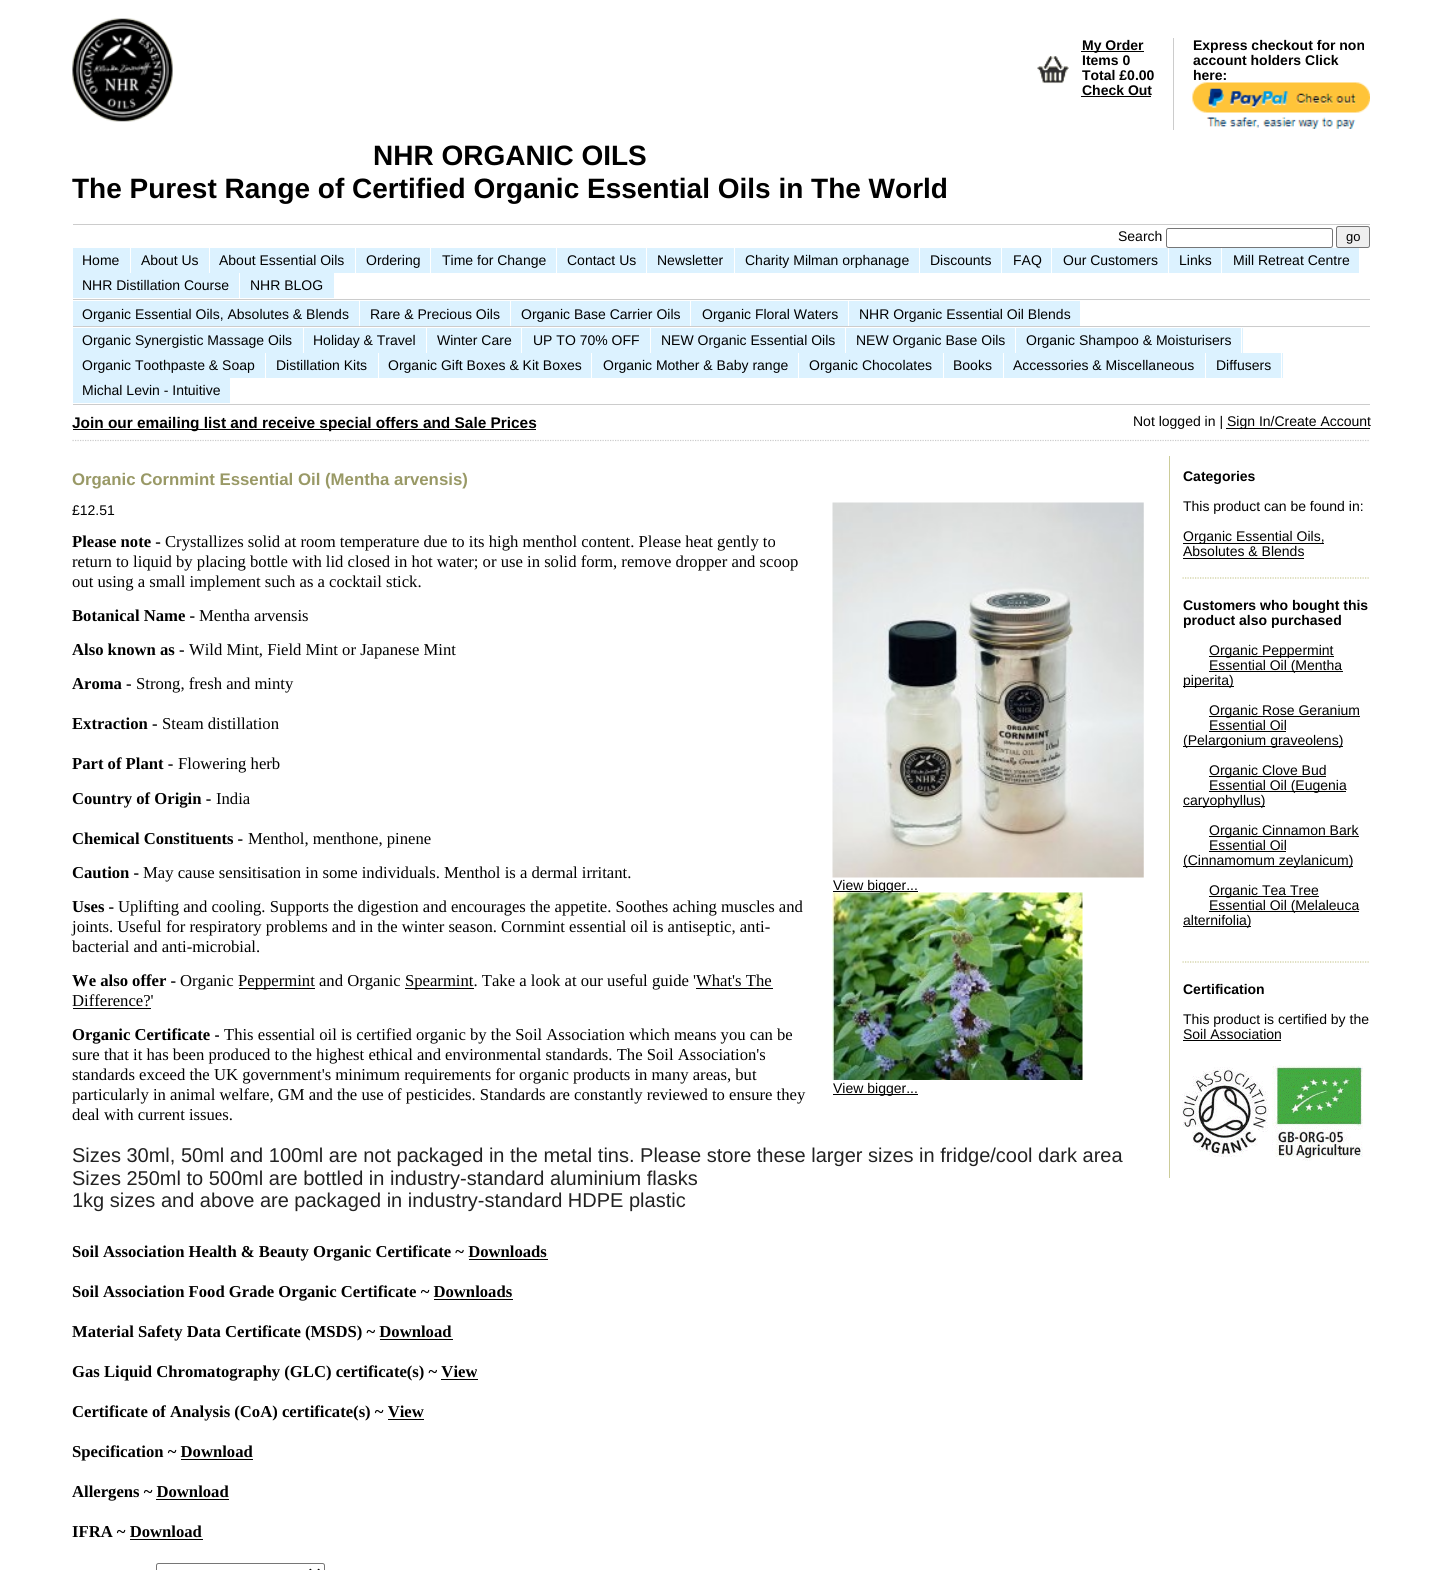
#include <cairo/cairo.h>
#include <math.h>
#include <stddef.h>


static void rounded_rect(cairo_t *cr, double x, double y, double w, double h, double r) {
  cairo_new_sub_path(cr);
  cairo_arc(cr, x + w - r, y + h - r, r, 0, M_PI / 2);
  cairo_arc(cr, x + r, y + h - r, r, M_PI / 2, M_PI);
  cairo_arc(cr, x + r, y + r, r, M_PI, 1.5 * M_PI);
  cairo_arc(cr, x + w - r, y + r, r, 1.5 * M_PI, 2 * M_PI);
  cairo_close_path(cr);
}

static void draw_image(cairo_t *cr, const char *path, double x, double y, double w, double h) {
  cairo_surface_t *image = cairo_image_surface_create_from_png(path);
  cairo_save(cr);
  cairo_set_source_surface(cr, image, x, y);
  cairo_rectangle(cr, x, y, w, h);
  cairo_fill(cr);
  cairo_restore(cr);
  cairo_surface_destroy(image);
}

static void draw(cairo_t *cr) {
  cairo_set_source_rgb(cr, 1, 1, 1);
  cairo_paint(cr);
  draw_image(cr, "images/1.png", 72, 18, 101, 104);
  draw_image(cr, "images/2.png", 1037, 56, 32, 28);
  cairo_set_source_rgb(cr, 0, 0, 0);
  cairo_rectangle(cr, 1081, 51, 63, 1);
  cairo_fill(cr);
  cairo_rectangle(cr, 1081, 96, 70, 1);
  cairo_fill(cr);
  cairo_set_source_rgb(cr, 204 / 255.0, 204 / 255.0, 204 / 255.0);
  cairo_rectangle(cr, 1173, 38, 1, 92);
  cairo_fill(cr);
  draw_image(cr, "images/3.png", 1192, 82, 178, 47);
  cairo_rectangle(cr, 73, 224, 1297, 1);
  cairo_fill(cr);
  cairo_rectangle(cr, 73, 299, 1297, 1);
  cairo_fill(cr);
  rounded_rect(cr, 1166.5, 228.5, 166, 19, 2);
  cairo_set_source_rgb(cr, 118 / 255.0, 118 / 255.0, 118 / 255.0);
  cairo_set_line_width(cr, 1);
  cairo_stroke(cr);
  cairo_set_source_rgb(cr, 239 / 255.0, 239 / 255.0, 239 / 255.0);
  rounded_rect(cr, 1336.5, 226.5, 33, 21, 2);
  cairo_fill_preserve(cr);
  cairo_set_source_rgb(cr, 118 / 255.0, 118 / 255.0, 118 / 255.0);
  cairo_stroke(cr);
  cairo_set_source_rgb(cr, 220 / 255.0, 242 / 255.0, 1);
  cairo_rectangle(cr, 73, 248, 57, 25);
  cairo_fill(cr);
  cairo_rectangle(cr, 131, 248, 78, 25);
  cairo_fill(cr);
  cairo_rectangle(cr, 210, 248, 145, 25);
  cairo_fill(cr);
  cairo_rectangle(cr, 356, 248, 74, 25);
  cairo_fill(cr);
  cairo_rectangle(cr, 431, 248, 303, 25);
  cairo_fill(cr);
  cairo_set_source_rgb(cr, 1, 1, 1);
  cairo_rectangle(cr, 556, 248, 1, 25);
  cairo_fill(cr);
  cairo_rectangle(cr, 646, 248, 1, 25);
  cairo_fill(cr);
  cairo_set_source_rgb(cr, 220 / 255.0, 242 / 255.0, 1);
  cairo_rectangle(cr, 735, 248, 184, 25);
  cairo_fill(cr);
  cairo_rectangle(cr, 920, 248, 248, 25);
  cairo_fill(cr);
  cairo_set_source_rgb(cr, 1, 1, 1);
  cairo_rectangle(cr, 1001, 248, 1, 25);
  cairo_fill(cr);
  cairo_rectangle(cr, 1051, 248, 1, 25);
  cairo_fill(cr);
  cairo_set_source_rgb(cr, 220 / 255.0, 242 / 255.0, 1);
  cairo_rectangle(cr, 1169, 248, 190, 25);
  cairo_fill(cr);
  cairo_set_source_rgb(cr, 1, 1, 1);
  cairo_rectangle(cr, 1221, 248, 1, 25);
  cairo_fill(cr);
  cairo_set_source_rgb(cr, 220 / 255.0, 242 / 255.0, 1);
  cairo_rectangle(cr, 73, 273, 166, 25);
  cairo_fill(cr);
  cairo_rectangle(cr, 240, 273, 94, 25);
  cairo_fill(cr);
  cairo_set_source_rgb(cr, 204 / 255.0, 204 / 255.0, 204 / 255.0);
  cairo_rectangle(cr, 73, 404, 1297, 1);
  cairo_fill(cr);
  cairo_set_source_rgb(cr, 220 / 255.0, 242 / 255.0, 1);
  cairo_rectangle(cr, 73, 301, 286, 25);
  cairo_fill(cr);
  cairo_rectangle(cr, 360, 301, 150, 25);
  cairo_fill(cr);
  cairo_rectangle(cr, 511, 301, 179, 25);
  cairo_fill(cr);
  cairo_rectangle(cr, 691, 301, 157, 25);
  cairo_fill(cr);
  cairo_rectangle(cr, 849, 301, 231, 25);
  cairo_fill(cr);
  cairo_set_source_rgb(cr, 204 / 255.0, 204 / 255.0, 204 / 255.0);
  cairo_rectangle(cr, 73, 326, 1297, 1);
  cairo_fill(cr);
  cairo_set_source_rgb(cr, 220 / 255.0, 242 / 255.0, 1);
  cairo_rectangle(cr, 73, 328, 230, 25);
  cairo_fill(cr);
  cairo_rectangle(cr, 304, 328, 346, 25);
  cairo_fill(cr);
  cairo_set_source_rgb(cr, 1, 1, 1);
  cairo_rectangle(cr, 426, 328, 1, 25);
  cairo_fill(cr);
  cairo_rectangle(cr, 521, 328, 1, 25);
  cairo_fill(cr);
  cairo_set_source_rgb(cr, 220 / 255.0, 242 / 255.0, 1);
  cairo_rectangle(cr, 651, 328, 194, 25);
  cairo_fill(cr);
  cairo_rectangle(cr, 846, 328, 169, 25);
  cairo_fill(cr);
  cairo_rectangle(cr, 1016, 328, 227, 25);
  cairo_fill(cr);
  cairo_set_source_rgb(cr, 1, 1, 1);
  cairo_rectangle(cr, 1241, 328, 1, 25);
  cairo_fill(cr);
  cairo_set_source_rgb(cr, 220 / 255.0, 242 / 255.0, 1);
  cairo_rectangle(cr, 73, 353, 192, 25);
  cairo_fill(cr);
  cairo_rectangle(cr, 266, 353, 112, 25);
  cairo_fill(cr);
  cairo_rectangle(cr, 379, 353, 419, 25);
  cairo_fill(cr);
  cairo_set_source_rgb(cr, 1, 1, 1);
  cairo_rectangle(cr, 591, 353, 1, 25);
  cairo_fill(cr);
  cairo_set_source_rgb(cr, 220 / 255.0, 242 / 255.0, 1);
  cairo_rectangle(cr, 799, 353, 144, 25);
  cairo_fill(cr);
  cairo_rectangle(cr, 944, 353, 59, 25);
  cairo_fill(cr);
  cairo_rectangle(cr, 1004, 353, 201, 25);
  cairo_fill(cr);
  cairo_rectangle(cr, 1206, 353, 77, 25);
  cairo_fill(cr);
  cairo_set_source_rgb(cr, 1, 1, 1);
  cairo_rectangle(cr, 1281, 353, 1, 25);
  cairo_fill(cr);
  cairo_set_source_rgb(cr, 220 / 255.0, 242 / 255.0, 1);
  cairo_rectangle(cr, 73, 378, 157, 25);
  cairo_fill(cr);
  cairo_new_path(cr);
  cairo_move_to(cr, 72.5, 440.5);
  cairo_line_to(cr, 1370, 440.5);
  cairo_set_source_rgb(cr, 204 / 255.0, 204 / 255.0, 204 / 255.0);
  cairo_set_line_width(cr, 1.2);
  cairo_set_dash(cr, (double[]){1.25, 1.25}, 2, 0);
  cairo_stroke(cr);
  cairo_set_source_rgb(cr, 0, 0, 0);
  cairo_rectangle(cr, 73, 429, 463, 1);
  cairo_fill(cr);
  cairo_rectangle(cr, 1226, 428, 144, 1);
  cairo_fill(cr);
  cairo_set_source_rgb(cr, 204 / 255.0, 204 / 255.0, 153 / 255.0);
  cairo_rectangle(cr, 1169, 456, 1, 722);
  cairo_fill(cr);
  cairo_set_source_rgb(cr, 0, 0, 0);
  cairo_rectangle(cr, 1183, 543, 141, 1);
  cairo_fill(cr);
  cairo_rectangle(cr, 1183, 558, 121, 1);
  cairo_fill(cr);
  cairo_new_path(cr);
  cairo_move_to(cr, 1182.5, 578);
  cairo_line_to(cr, 1370, 578);
  cairo_set_source_rgb(cr, 204 / 255.0, 204 / 255.0, 153 / 255.0);
  cairo_stroke(cr);
  cairo_set_source_rgb(cr, 0, 0, 0);
  cairo_rectangle(cr, 1209, 656, 125, 1);
  cairo_fill(cr);
  cairo_rectangle(cr, 1209, 671, 134, 1);
  cairo_fill(cr);
  cairo_rectangle(cr, 1183, 686, 51, 1);
  cairo_fill(cr);
  cairo_rectangle(cr, 1209, 716, 151, 1);
  cairo_fill(cr);
  cairo_rectangle(cr, 1209, 731, 77, 1);
  cairo_fill(cr);
  cairo_rectangle(cr, 1183, 746, 160, 1);
  cairo_fill(cr);
  cairo_rectangle(cr, 1209, 776, 117, 1);
  cairo_fill(cr);
  cairo_rectangle(cr, 1209, 791, 137, 1);
  cairo_fill(cr);
  cairo_rectangle(cr, 1183, 806, 82, 1);
  cairo_fill(cr);
  cairo_rectangle(cr, 1209, 836, 150, 1);
  cairo_fill(cr);
  cairo_rectangle(cr, 1209, 851, 77, 1);
  cairo_fill(cr);
  cairo_rectangle(cr, 1183, 866, 170, 1);
  cairo_fill(cr);
  cairo_rectangle(cr, 1209, 896, 110, 1);
  cairo_fill(cr);
  cairo_rectangle(cr, 1209, 911, 150, 1);
  cairo_fill(cr);
  cairo_rectangle(cr, 1183, 926, 68, 1);
  cairo_fill(cr);
  cairo_new_path(cr);
  cairo_move_to(cr, 1182.5, 962);
  cairo_line_to(cr, 1370, 962);
  cairo_set_source_rgb(cr, 204 / 255.0, 204 / 255.0, 153 / 255.0);
  cairo_stroke(cr);
  cairo_set_source_rgb(cr, 0, 0, 0);
  cairo_rectangle(cr, 1183, 1040, 98, 1);
  cairo_fill(cr);
  draw_image(cr, "images/4.png", 1182, 1065, 181, 96);
  cairo_rectangle(cr, 239, 988, 76, 1);
  cairo_fill(cr);
  cairo_rectangle(cr, 405, 988, 69, 1);
  cairo_fill(cr);
  cairo_rectangle(cr, 696, 988, 77, 1);
  cairo_fill(cr);
  cairo_rectangle(cr, 73, 1008, 78, 1);
  cairo_fill(cr);
  draw_image(cr, "images/5.png", 832, 502, 312, 376);
  cairo_rectangle(cr, 833, 891, 85, 1);
  cairo_fill(cr);
  cairo_rectangle(cr, 833, 1094, 85, 1);
  cairo_fill(cr);
  cairo_rectangle(cr, 469, 1259, 79, 1);
  cairo_fill(cr);
  cairo_rectangle(cr, 434, 1299, 79, 1);
  cairo_fill(cr);
  cairo_rectangle(cr, 380, 1339, 73, 1);
  cairo_fill(cr);
  cairo_rectangle(cr, 441, 1379, 37, 1);
  cairo_fill(cr);
  cairo_rectangle(cr, 388, 1419, 36, 1);
  cairo_fill(cr);
  cairo_rectangle(cr, 181, 1459, 72, 1);
  cairo_fill(cr);
  cairo_rectangle(cr, 156, 1499, 73, 1);
  cairo_fill(cr);
  cairo_rectangle(cr, 130, 1539, 73, 1);
  cairo_fill(cr);
  rounded_rect(cr, 156.5, 1563.5, 168, 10, 2);
  cairo_set_source_rgb(cr, 118 / 255.0, 118 / 255.0, 118 / 255.0);
  cairo_set_line_width(cr, 1);
  cairo_set_dash(cr, NULL, 0, 0);
  cairo_stroke(cr);
  cairo_new_path(cr);
  cairo_move_to(cr, 309.5, 1569.5);
  cairo_line_to(cr, 314.5, 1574.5);
  cairo_line_to(cr, 319.5, 1569.5);
  cairo_set_source_rgb(cr, 0, 0, 0);
  cairo_set_line_width(cr, 2.5);
  cairo_stroke(cr);
  cairo_select_font_face(cr, "Liberation Sans", CAIRO_FONT_SLANT_NORMAL, CAIRO_FONT_WEIGHT_BOLD);
  cairo_set_font_size(cr, 14);
  cairo_move_to(cr, 1082, 50);
  cairo_show_text(cr, "My Order");
  cairo_move_to(cr, 1082, 65);
  cairo_show_text(cr, "Items 0");
  cairo_move_to(cr, 1082, 80);
  cairo_show_text(cr, "Total £0.00");
  cairo_move_to(cr, 1082, 95);
  cairo_show_text(cr, "Check Out");
  cairo_move_to(cr, 1193, 50);
  cairo_show_text(cr, "Express checkout for non");
  cairo_move_to(cr, 1193, 65);
  cairo_show_text(cr, "account holders Click");
  cairo_move_to(cr, 1193, 80);
  cairo_show_text(cr, "here:");
  cairo_set_font_size(cr, 28);
  cairo_move_to(cr, 373, 165);
  cairo_show_text(cr, "NHR ORGANIC OILS");
  cairo_move_to(cr, 72, 198);
  cairo_show_text(cr, "The Purest Range of Certified Organic Essential Oils in The World");
  cairo_select_font_face(cr, "Liberation Sans", CAIRO_FONT_SLANT_NORMAL, CAIRO_FONT_WEIGHT_NORMAL);
  cairo_set_font_size(cr, 14);
  cairo_move_to(cr, 1118, 241);
  cairo_show_text(cr, "Search");
  cairo_set_font_size(cr, 13);
  cairo_move_to(cr, 1346, 241);
  cairo_show_text(cr, "go");
  cairo_set_font_size(cr, 14);
  cairo_move_to(cr, 82, 265);
  cairo_show_text(cr, "Home");
  cairo_move_to(cr, 141, 265);
  cairo_show_text(cr, "About Us");
  cairo_move_to(cr, 219, 265);
  cairo_show_text(cr, "About Essential Oils");
  cairo_move_to(cr, 366, 265);
  cairo_show_text(cr, "Ordering");
  cairo_move_to(cr, 442, 265);
  cairo_show_text(cr, "Time for Change");
  cairo_move_to(cr, 567, 265);
  cairo_show_text(cr, "Contact Us");
  cairo_move_to(cr, 657, 265);
  cairo_show_text(cr, "Newsletter");
  cairo_move_to(cr, 745, 265);
  cairo_show_text(cr, "Charity Milman orphanage");
  cairo_move_to(cr, 930, 265);
  cairo_show_text(cr, "Discounts");
  cairo_move_to(cr, 1013, 265);
  cairo_show_text(cr, "FAQ");
  cairo_move_to(cr, 1063, 265);
  cairo_show_text(cr, "Our Customers");
  cairo_move_to(cr, 1179, 265);
  cairo_show_text(cr, "Links");
  cairo_move_to(cr, 1233, 265);
  cairo_show_text(cr, "Mill Retreat Centre");
  cairo_move_to(cr, 82, 290);
  cairo_show_text(cr, "NHR Distillation Course");
  cairo_move_to(cr, 250, 290);
  cairo_show_text(cr, "NHR BLOG");
  cairo_move_to(cr, 82, 319);
  cairo_show_text(cr, "Organic Essential Oils, Absolutes & Blends");
  cairo_move_to(cr, 370, 319);
  cairo_show_text(cr, "Rare & Precious Oils");
  cairo_move_to(cr, 521, 319);
  cairo_show_text(cr, "Organic Base Carrier Oils");
  cairo_move_to(cr, 702, 319);
  cairo_show_text(cr, "Organic Floral Waters");
  cairo_move_to(cr, 859, 319);
  cairo_show_text(cr, "NHR Organic Essential Oil Blends");
  cairo_move_to(cr, 82, 345);
  cairo_show_text(cr, "Organic Synergistic Massage Oils");
  cairo_move_to(cr, 313, 345);
  cairo_show_text(cr, "Holiday & Travel");
  cairo_move_to(cr, 437, 345);
  cairo_show_text(cr, "Winter Care");
  cairo_move_to(cr, 533, 345);
  cairo_show_text(cr, "UP TO 70% OFF");
  cairo_move_to(cr, 661, 345);
  cairo_show_text(cr, "NEW Organic Essential Oils");
  cairo_move_to(cr, 856, 345);
  cairo_show_text(cr, "NEW Organic Base Oils");
  cairo_move_to(cr, 1026, 345);
  cairo_show_text(cr, "Organic Shampoo & Moisturisers");
  cairo_move_to(cr, 82, 370);
  cairo_show_text(cr, "Organic Toothpaste & Soap");
  cairo_move_to(cr, 276, 370);
  cairo_show_text(cr, "Distillation Kits");
  cairo_move_to(cr, 388, 370);
  cairo_show_text(cr, "Organic Gift Boxes & Kit Boxes");
  cairo_move_to(cr, 603, 370);
  cairo_show_text(cr, "Organic Mother & Baby range");
  cairo_move_to(cr, 809, 370);
  cairo_show_text(cr, "Organic Chocolates");
  cairo_move_to(cr, 953, 370);
  cairo_show_text(cr, "Books");
  cairo_move_to(cr, 1013, 370);
  cairo_show_text(cr, "Accessories & Miscellaneous");
  cairo_move_to(cr, 1216, 370);
  cairo_show_text(cr, "Diffusers");
  cairo_move_to(cr, 82, 395);
  cairo_show_text(cr, "Michal Levin - Intuitive");
  cairo_select_font_face(cr, "Liberation Sans", CAIRO_FONT_SLANT_NORMAL, CAIRO_FONT_WEIGHT_BOLD);
  cairo_set_font_size(cr, 15.4);
  cairo_move_to(cr, 72, 428);
  cairo_show_text(cr, "Join our emailing list and receive special offers and Sale Prices");
  cairo_select_font_face(cr, "Liberation Sans", CAIRO_FONT_SLANT_NORMAL, CAIRO_FONT_WEIGHT_NORMAL);
  cairo_set_font_size(cr, 14);
  cairo_move_to(cr, 1133, 426);
  cairo_show_text(cr, "Not logged in |");
  cairo_move_to(cr, 1227, 426);
  cairo_show_text(cr, "Sign In/Create Account");
  cairo_select_font_face(cr, "Liberation Sans", CAIRO_FONT_SLANT_NORMAL, CAIRO_FONT_WEIGHT_BOLD);
  cairo_set_font_size(cr, 16.8);
  cairo_set_source_rgb(cr, 153 / 255.0, 153 / 255.0, 102 / 255.0);
  cairo_move_to(cr, 72, 485);
  cairo_show_text(cr, "Organic Cornmint Essential Oil (Mentha arvensis)");
  cairo_set_font_size(cr, 14);
  cairo_set_source_rgb(cr, 0, 0, 0);
  cairo_move_to(cr, 1183, 481);
  cairo_show_text(cr, "Categories");
  cairo_select_font_face(cr, "Liberation Sans", CAIRO_FONT_SLANT_NORMAL, CAIRO_FONT_WEIGHT_NORMAL);
  cairo_move_to(cr, 1183, 511);
  cairo_show_text(cr, "This product can be found in:");
  cairo_move_to(cr, 1183, 541);
  cairo_show_text(cr, "Organic Essential Oils,");
  cairo_move_to(cr, 1183, 556);
  cairo_show_text(cr, "Absolutes & Blends");
  cairo_select_font_face(cr, "Liberation Sans", CAIRO_FONT_SLANT_NORMAL, CAIRO_FONT_WEIGHT_BOLD);
  cairo_move_to(cr, 1183, 610);
  cairo_show_text(cr, "Customers who bought this");
  cairo_move_to(cr, 1183, 625);
  cairo_show_text(cr, "product also purchased");
  cairo_select_font_face(cr, "Liberation Sans", CAIRO_FONT_SLANT_NORMAL, CAIRO_FONT_WEIGHT_NORMAL);
  cairo_move_to(cr, 1209, 655);
  cairo_show_text(cr, "Organic Peppermint");
  cairo_move_to(cr, 1209, 670);
  cairo_show_text(cr, "Essential Oil (Mentha");
  cairo_move_to(cr, 1183, 685);
  cairo_show_text(cr, "piperita)");
  cairo_move_to(cr, 1209, 715);
  cairo_show_text(cr, "Organic Rose Geranium");
  cairo_move_to(cr, 1209, 730);
  cairo_show_text(cr, "Essential Oil");
  cairo_move_to(cr, 1183, 745);
  cairo_show_text(cr, "(Pelargonium graveolens)");
  cairo_move_to(cr, 1209, 775);
  cairo_show_text(cr, "Organic Clove Bud");
  cairo_move_to(cr, 1209, 790);
  cairo_show_text(cr, "Essential Oil (Eugenia");
  cairo_move_to(cr, 1183, 805);
  cairo_show_text(cr, "caryophyllus)");
  cairo_move_to(cr, 1209, 835);
  cairo_show_text(cr, "Organic Cinnamon Bark");
  cairo_move_to(cr, 1209, 850);
  cairo_show_text(cr, "Essential Oil");
  cairo_move_to(cr, 1183, 865);
  cairo_show_text(cr, "(Cinnamomum zeylanicum)");
  cairo_move_to(cr, 1209, 895);
  cairo_show_text(cr, "Organic Tea Tree");
  cairo_move_to(cr, 1209, 910);
  cairo_show_text(cr, "Essential Oil (Melaleuca");
  cairo_move_to(cr, 1183, 925);
  cairo_show_text(cr, "alternifolia)");
  cairo_select_font_face(cr, "Liberation Sans", CAIRO_FONT_SLANT_NORMAL, CAIRO_FONT_WEIGHT_BOLD);
  cairo_move_to(cr, 1183, 994);
  cairo_show_text(cr, "Certification");
  cairo_select_font_face(cr, "Liberation Sans", CAIRO_FONT_SLANT_NORMAL, CAIRO_FONT_WEIGHT_NORMAL);
  cairo_move_to(cr, 1183, 1024);
  cairo_show_text(cr, "This product is certified by the");
  cairo_move_to(cr, 1183, 1039);
  cairo_show_text(cr, "Soil Association");
  cairo_move_to(cr, 72, 515);
  cairo_show_text(cr, "£12.51");
  cairo_select_font_face(cr, "Liberation Serif", CAIRO_FONT_SLANT_NORMAL, CAIRO_FONT_WEIGHT_BOLD);
  cairo_set_font_size(cr, 16.65);
  cairo_move_to(cr, 72, 547);
  cairo_show_text(cr, "Please note -");
  cairo_select_font_face(cr, "Liberation Serif", CAIRO_FONT_SLANT_NORMAL, CAIRO_FONT_WEIGHT_NORMAL);
  cairo_move_to(cr, 165, 547);
  cairo_show_text(cr, "Crystallizes solid at room temperature due to its high menthol content. Please heat gently to");
  cairo_move_to(cr, 72, 567);
  cairo_show_text(cr, "return to liquid by placing bottle with lid closed in hot water; or use in solid form, remove dropper and scoop");
  cairo_move_to(cr, 72, 587);
  cairo_show_text(cr, "out using a small implement such as a cocktail stick.");
  cairo_select_font_face(cr, "Liberation Serif", CAIRO_FONT_SLANT_NORMAL, CAIRO_FONT_WEIGHT_BOLD);
  cairo_move_to(cr, 72, 621);
  cairo_show_text(cr, "Botanical Name -");
  cairo_select_font_face(cr, "Liberation Serif", CAIRO_FONT_SLANT_NORMAL, CAIRO_FONT_WEIGHT_NORMAL);
  cairo_move_to(cr, 199, 621);
  cairo_show_text(cr, "Mentha arvensis");
  cairo_select_font_face(cr, "Liberation Serif", CAIRO_FONT_SLANT_NORMAL, CAIRO_FONT_WEIGHT_BOLD);
  cairo_move_to(cr, 72, 655);
  cairo_show_text(cr, "Also known as -");
  cairo_select_font_face(cr, "Liberation Serif", CAIRO_FONT_SLANT_NORMAL, CAIRO_FONT_WEIGHT_NORMAL);
  cairo_move_to(cr, 189, 655);
  cairo_show_text(cr, "Wild Mint, Field Mint or Japanese Mint");
  cairo_select_font_face(cr, "Liberation Serif", CAIRO_FONT_SLANT_NORMAL, CAIRO_FONT_WEIGHT_BOLD);
  cairo_move_to(cr, 72, 689);
  cairo_show_text(cr, "Aroma -");
  cairo_select_font_face(cr, "Liberation Serif", CAIRO_FONT_SLANT_NORMAL, CAIRO_FONT_WEIGHT_NORMAL);
  cairo_move_to(cr, 136, 689);
  cairo_show_text(cr, "Strong, fresh and minty");
  cairo_select_font_face(cr, "Liberation Serif", CAIRO_FONT_SLANT_NORMAL, CAIRO_FONT_WEIGHT_BOLD);
  cairo_move_to(cr, 72, 729);
  cairo_show_text(cr, "Extraction -");
  cairo_select_font_face(cr, "Liberation Serif", CAIRO_FONT_SLANT_NORMAL, CAIRO_FONT_WEIGHT_NORMAL);
  cairo_move_to(cr, 162, 729);
  cairo_show_text(cr, "Steam distillation");
  cairo_select_font_face(cr, "Liberation Serif", CAIRO_FONT_SLANT_NORMAL, CAIRO_FONT_WEIGHT_BOLD);
  cairo_move_to(cr, 72, 769);
  cairo_show_text(cr, "Part of Plant -");
  cairo_select_font_face(cr, "Liberation Serif", CAIRO_FONT_SLANT_NORMAL, CAIRO_FONT_WEIGHT_NORMAL);
  cairo_move_to(cr, 178, 769);
  cairo_show_text(cr, "Flowering herb");
  cairo_select_font_face(cr, "Liberation Serif", CAIRO_FONT_SLANT_NORMAL, CAIRO_FONT_WEIGHT_BOLD);
  cairo_move_to(cr, 72, 804);
  cairo_show_text(cr, "Country of Origin -");
  cairo_select_font_face(cr, "Liberation Serif", CAIRO_FONT_SLANT_NORMAL, CAIRO_FONT_WEIGHT_NORMAL);
  cairo_move_to(cr, 216, 804);
  cairo_show_text(cr, "India");
  cairo_select_font_face(cr, "Liberation Serif", CAIRO_FONT_SLANT_NORMAL, CAIRO_FONT_WEIGHT_BOLD);
  cairo_move_to(cr, 72, 844);
  cairo_show_text(cr, "Chemical Constituents -");
  cairo_select_font_face(cr, "Liberation Serif", CAIRO_FONT_SLANT_NORMAL, CAIRO_FONT_WEIGHT_NORMAL);
  cairo_move_to(cr, 248, 844);
  cairo_show_text(cr, "Menthol, menthone, pinene");
  cairo_select_font_face(cr, "Liberation Serif", CAIRO_FONT_SLANT_NORMAL, CAIRO_FONT_WEIGHT_BOLD);
  cairo_move_to(cr, 72, 878);
  cairo_show_text(cr, "Caution -");
  cairo_select_font_face(cr, "Liberation Serif", CAIRO_FONT_SLANT_NORMAL, CAIRO_FONT_WEIGHT_NORMAL);
  cairo_move_to(cr, 143, 878);
  cairo_show_text(cr, "May cause sensitisation in some individuals. Menthol is a dermal irritant.");
  cairo_select_font_face(cr, "Liberation Serif", CAIRO_FONT_SLANT_NORMAL, CAIRO_FONT_WEIGHT_BOLD);
  cairo_move_to(cr, 72, 912);
  cairo_show_text(cr, "Uses -");
  cairo_select_font_face(cr, "Liberation Serif", CAIRO_FONT_SLANT_NORMAL, CAIRO_FONT_WEIGHT_NORMAL);
  cairo_move_to(cr, 118, 912);
  cairo_show_text(cr, "Uplifting and cooling. Supports the digestion and encourages the appetite. Soothes aching muscles and");
  cairo_move_to(cr, 72, 932);
  cairo_show_text(cr, "joints. Useful for respiratory problems and in the winter season. Cornmint essential oil is antiseptic, anti-");
  cairo_move_to(cr, 72, 952);
  cairo_show_text(cr, "bacterial and anti-microbial.");
  cairo_select_font_face(cr, "Liberation Serif", CAIRO_FONT_SLANT_NORMAL, CAIRO_FONT_WEIGHT_BOLD);
  cairo_move_to(cr, 72, 986);
  cairo_show_text(cr, "We also offer -");
  cairo_select_font_face(cr, "Liberation Serif", CAIRO_FONT_SLANT_NORMAL, CAIRO_FONT_WEIGHT_NORMAL);
  cairo_move_to(cr, 180, 986);
  cairo_show_text(cr, "Organic");
  cairo_move_to(cr, 238, 986);
  cairo_show_text(cr, "Peppermint and Organic");
  cairo_move_to(cr, 405, 986);
  cairo_show_text(cr, "Spearmint. Take a look at our useful guide 'What's The");
  cairo_move_to(cr, 72, 1006);
  cairo_show_text(cr, "Difference?'");
  cairo_select_font_face(cr, "Liberation Serif", CAIRO_FONT_SLANT_NORMAL, CAIRO_FONT_WEIGHT_BOLD);
  cairo_move_to(cr, 72, 1040);
  cairo_show_text(cr, "Organic Certificate -");
  cairo_select_font_face(cr, "Liberation Serif", CAIRO_FONT_SLANT_NORMAL, CAIRO_FONT_WEIGHT_NORMAL);
  cairo_move_to(cr, 224, 1040);
  cairo_show_text(cr, "This essential oil is certified organic by the Soil Association which means you can be");
  cairo_move_to(cr, 72, 1060);
  cairo_show_text(cr, "sure that it has been produced to the highest ethical and environmental standards. The Soil Association's");
  cairo_move_to(cr, 72, 1080);
  cairo_show_text(cr, "standards exceed the UK government's minimum requirements for organic products in many areas, but");
  cairo_move_to(cr, 72, 1100);
  cairo_show_text(cr, "particularly in animal welfare, GM and the use of pesticides. Standards are constantly reviewed to ensure they");
  cairo_move_to(cr, 72, 1120);
  cairo_show_text(cr, "deal with current issues.");
  cairo_select_font_face(cr, "Liberation Sans", CAIRO_FONT_SLANT_NORMAL, CAIRO_FONT_WEIGHT_NORMAL);
  cairo_set_font_size(cr, 20);
  cairo_set_source_rgb(cr, 34 / 255.0, 34 / 255.0, 34 / 255.0);
  cairo_move_to(cr, 72, 1162);
  cairo_show_text(cr, "Sizes 30ml, 50ml and 100ml are not packaged in the metal tins. Please store these larger sizes in fridge/cool dark area");
  cairo_move_to(cr, 72, 1185);
  cairo_show_text(cr, "Sizes 250ml to 500ml are bottled in industry-standard aluminium flasks");
  cairo_move_to(cr, 72, 1207);
  cairo_show_text(cr, "1kg sizes and above are packaged in industry-standard HDPE plastic");
  cairo_set_font_size(cr, 14);
  cairo_set_source_rgb(cr, 0, 0, 0);
  cairo_move_to(cr, 833, 890);
  cairo_show_text(cr, "View bigger...");
  draw_image(cr, "images/6.png", 832, 892, 251, 188);
  cairo_move_to(cr, 833, 1093);
  cairo_show_text(cr, "View bigger...");
  cairo_select_font_face(cr, "Liberation Serif", CAIRO_FONT_SLANT_NORMAL, CAIRO_FONT_WEIGHT_BOLD);
  cairo_set_font_size(cr, 16.65);
  cairo_move_to(cr, 72, 1257);
  cairo_show_text(cr, "Soil Association Health & Beauty Organic Certificate ~ Downloads");
  cairo_move_to(cr, 72, 1297);
  cairo_show_text(cr, "Soil Association Food Grade Organic Certificate ~ Downloads");
  cairo_move_to(cr, 72, 1337);
  cairo_show_text(cr, "Material Safety Data Certificate (MSDS) ~ Download");
  cairo_move_to(cr, 72, 1377);
  cairo_show_text(cr, "Gas Liquid Chromatography (GLC) certificate(s) ~ View");
  cairo_move_to(cr, 72, 1417);
  cairo_show_text(cr, "Certificate of Analysis (CoA) certificate(s) ~ View");
  cairo_move_to(cr, 72, 1457);
  cairo_show_text(cr, "Specification ~ Download");
  cairo_move_to(cr, 72, 1497);
  cairo_show_text(cr, "Allergens ~ Download");
  cairo_move_to(cr, 72, 1537);
  cairo_show_text(cr, "IFRA ~ Download");
}

int main(void) {
  cairo_surface_t *surface = cairo_image_surface_create(CAIRO_FORMAT_RGB24, 1442, 1570);
  cairo_t *cr = cairo_create(surface);
  cairo_font_options_t *options = cairo_font_options_create();
  cairo_font_options_set_hint_metrics(options, CAIRO_HINT_METRICS_OFF);
  cairo_font_options_set_hint_style(options, CAIRO_HINT_STYLE_NONE);
  cairo_set_font_options(cr, options);
  cairo_set_miter_limit(cr, 4);
  draw(cr);
  cairo_surface_write_to_png(surface, "out.png");
  cairo_font_options_destroy(options);
  cairo_destroy(cr);
  cairo_surface_destroy(surface);
  return 0;
}
